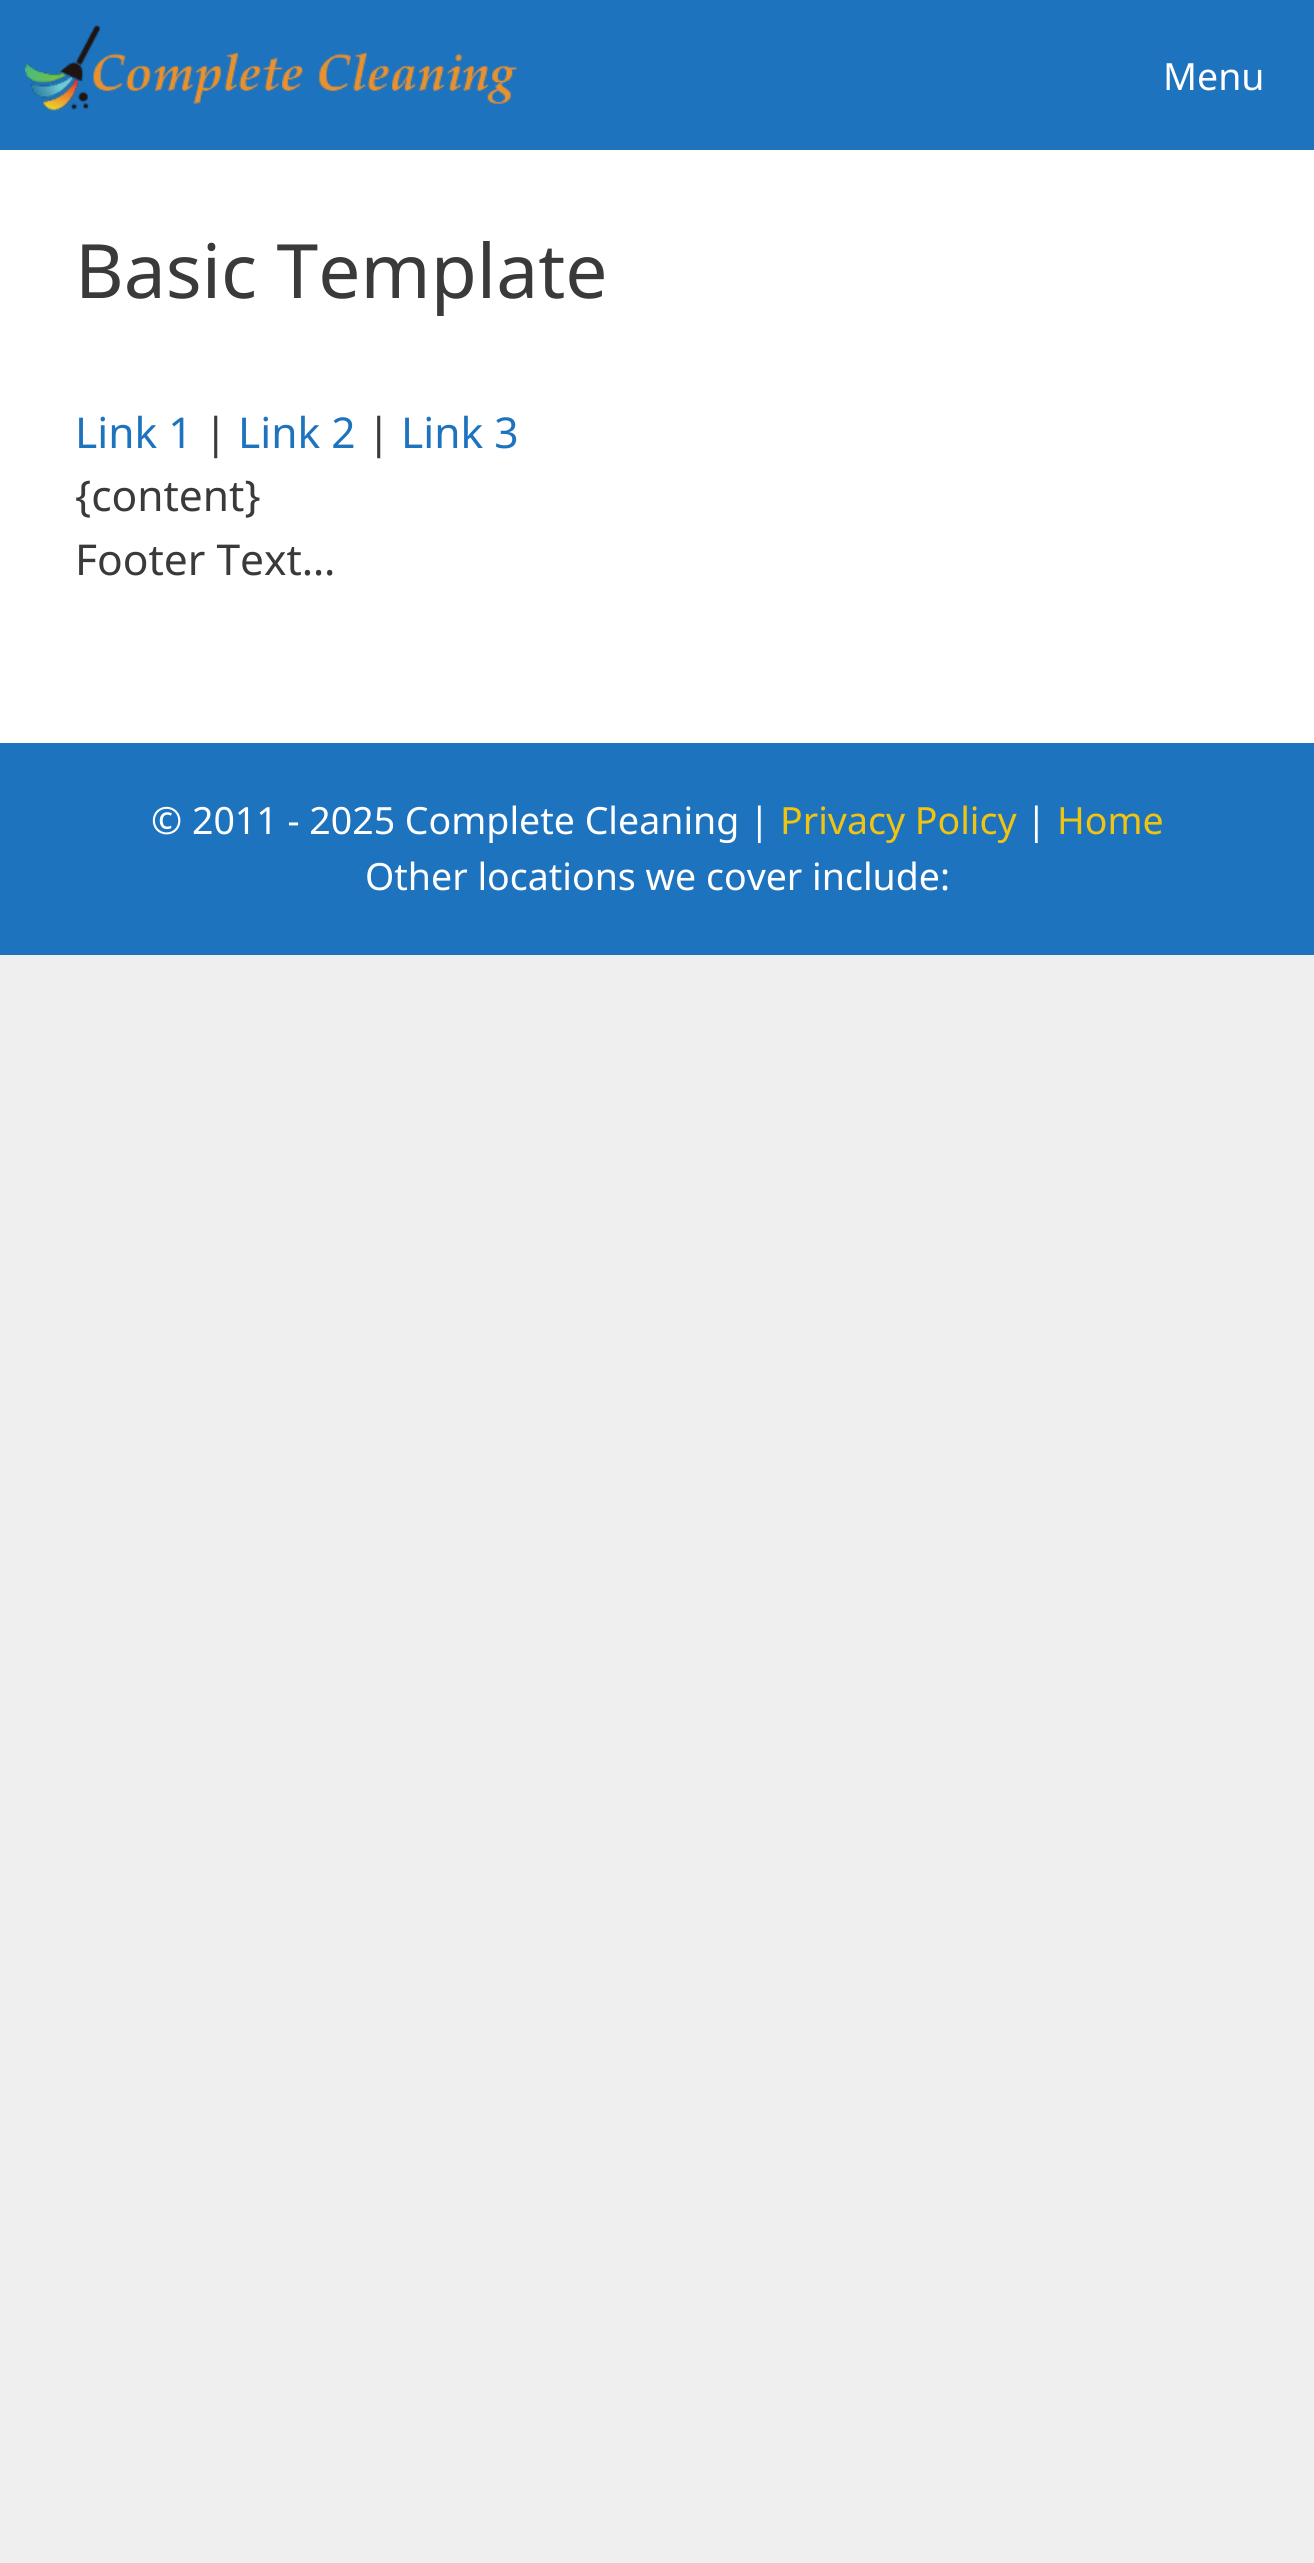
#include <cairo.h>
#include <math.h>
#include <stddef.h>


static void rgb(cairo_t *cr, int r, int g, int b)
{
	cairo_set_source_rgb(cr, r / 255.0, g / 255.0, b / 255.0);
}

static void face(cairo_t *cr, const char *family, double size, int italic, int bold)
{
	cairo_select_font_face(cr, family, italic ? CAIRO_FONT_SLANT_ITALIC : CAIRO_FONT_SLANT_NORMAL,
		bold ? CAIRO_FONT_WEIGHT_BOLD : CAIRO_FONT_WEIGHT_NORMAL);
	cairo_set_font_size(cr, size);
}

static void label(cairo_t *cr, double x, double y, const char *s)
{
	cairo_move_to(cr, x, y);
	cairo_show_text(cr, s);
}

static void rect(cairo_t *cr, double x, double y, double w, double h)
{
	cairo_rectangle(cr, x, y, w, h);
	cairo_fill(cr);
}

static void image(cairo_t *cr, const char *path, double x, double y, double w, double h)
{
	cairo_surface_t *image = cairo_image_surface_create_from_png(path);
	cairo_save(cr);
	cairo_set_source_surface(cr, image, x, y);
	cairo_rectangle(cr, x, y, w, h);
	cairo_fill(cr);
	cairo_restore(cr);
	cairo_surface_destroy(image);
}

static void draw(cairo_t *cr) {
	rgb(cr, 239, 239, 239);
	cairo_paint(cr);
	rgb(cr, 30, 115, 190);
	rect(cr, 0, 0, 1314, 150);
	image(cr, "image0.png", 25, 25, 492, 86);
	face(cr, "Noto Sans", 37.5, 0, 0);
	rgb(cr, 255, 255, 255);
	label(cr, 1163, 90, "Menu");
	rect(cr, 0, 150, 1314, 593);
	face(cr, "Noto Sans", 75, 0, 0);
	rgb(cr, 58, 58, 58);
	label(cr, 75, 298, "Basic Template");
	face(cr, "Noto Sans", 42.5, 0, 0);
	rgb(cr, 30, 115, 190);
	label(cr, 75, 448, "Link 1");
	rgb(cr, 58, 58, 58);
	label(cr, 204, 448, "|");
	rgb(cr, 30, 115, 190);
	label(cr, 238, 448, "Link 2");
	rgb(cr, 58, 58, 58);
	label(cr, 367, 448, "|");
	rgb(cr, 30, 115, 190);
	label(cr, 401, 448, "Link 3");
	rgb(cr, 58, 58, 58);
	label(cr, 75, 511, "{content}");
	label(cr, 75, 575, "Footer Text…");
	rgb(cr, 30, 115, 190);
	rect(cr, 0, 743, 1314, 212);
	face(cr, "Noto Sans", 37.5, 0, 0);
	rgb(cr, 255, 255, 255);
	label(cr, 151, 834, "© 2011 - 2025 Complete Cleaning |");
	rgb(cr, 241, 196, 15);
	label(cr, 780, 834, "Privacy Policy");
	rgb(cr, 255, 255, 255);
	label(cr, 1026, 834, "|");
	rgb(cr, 241, 196, 15);
	label(cr, 1057, 834, "Home");
	rgb(cr, 255, 255, 255);
	label(cr, 365, 890, "Other locations we cover include:");
}

int main(void) {
	cairo_surface_t *surface = cairo_image_surface_create(CAIRO_FORMAT_RGB24, 1314, 2563);
	cairo_t *cr = cairo_create(surface);
	cairo_font_options_t *options = cairo_font_options_create();
	cairo_font_options_set_hint_metrics(options, CAIRO_HINT_METRICS_OFF);
	cairo_font_options_set_hint_style(options, CAIRO_HINT_STYLE_NONE);
	cairo_set_font_options(cr, options);
	cairo_set_miter_limit(cr, 4);
	draw(cr);
	cairo_surface_write_to_png(surface, "render.png");
	cairo_font_options_destroy(options);
	cairo_destroy(cr);
	cairo_surface_destroy(surface);
	return 0;
}
